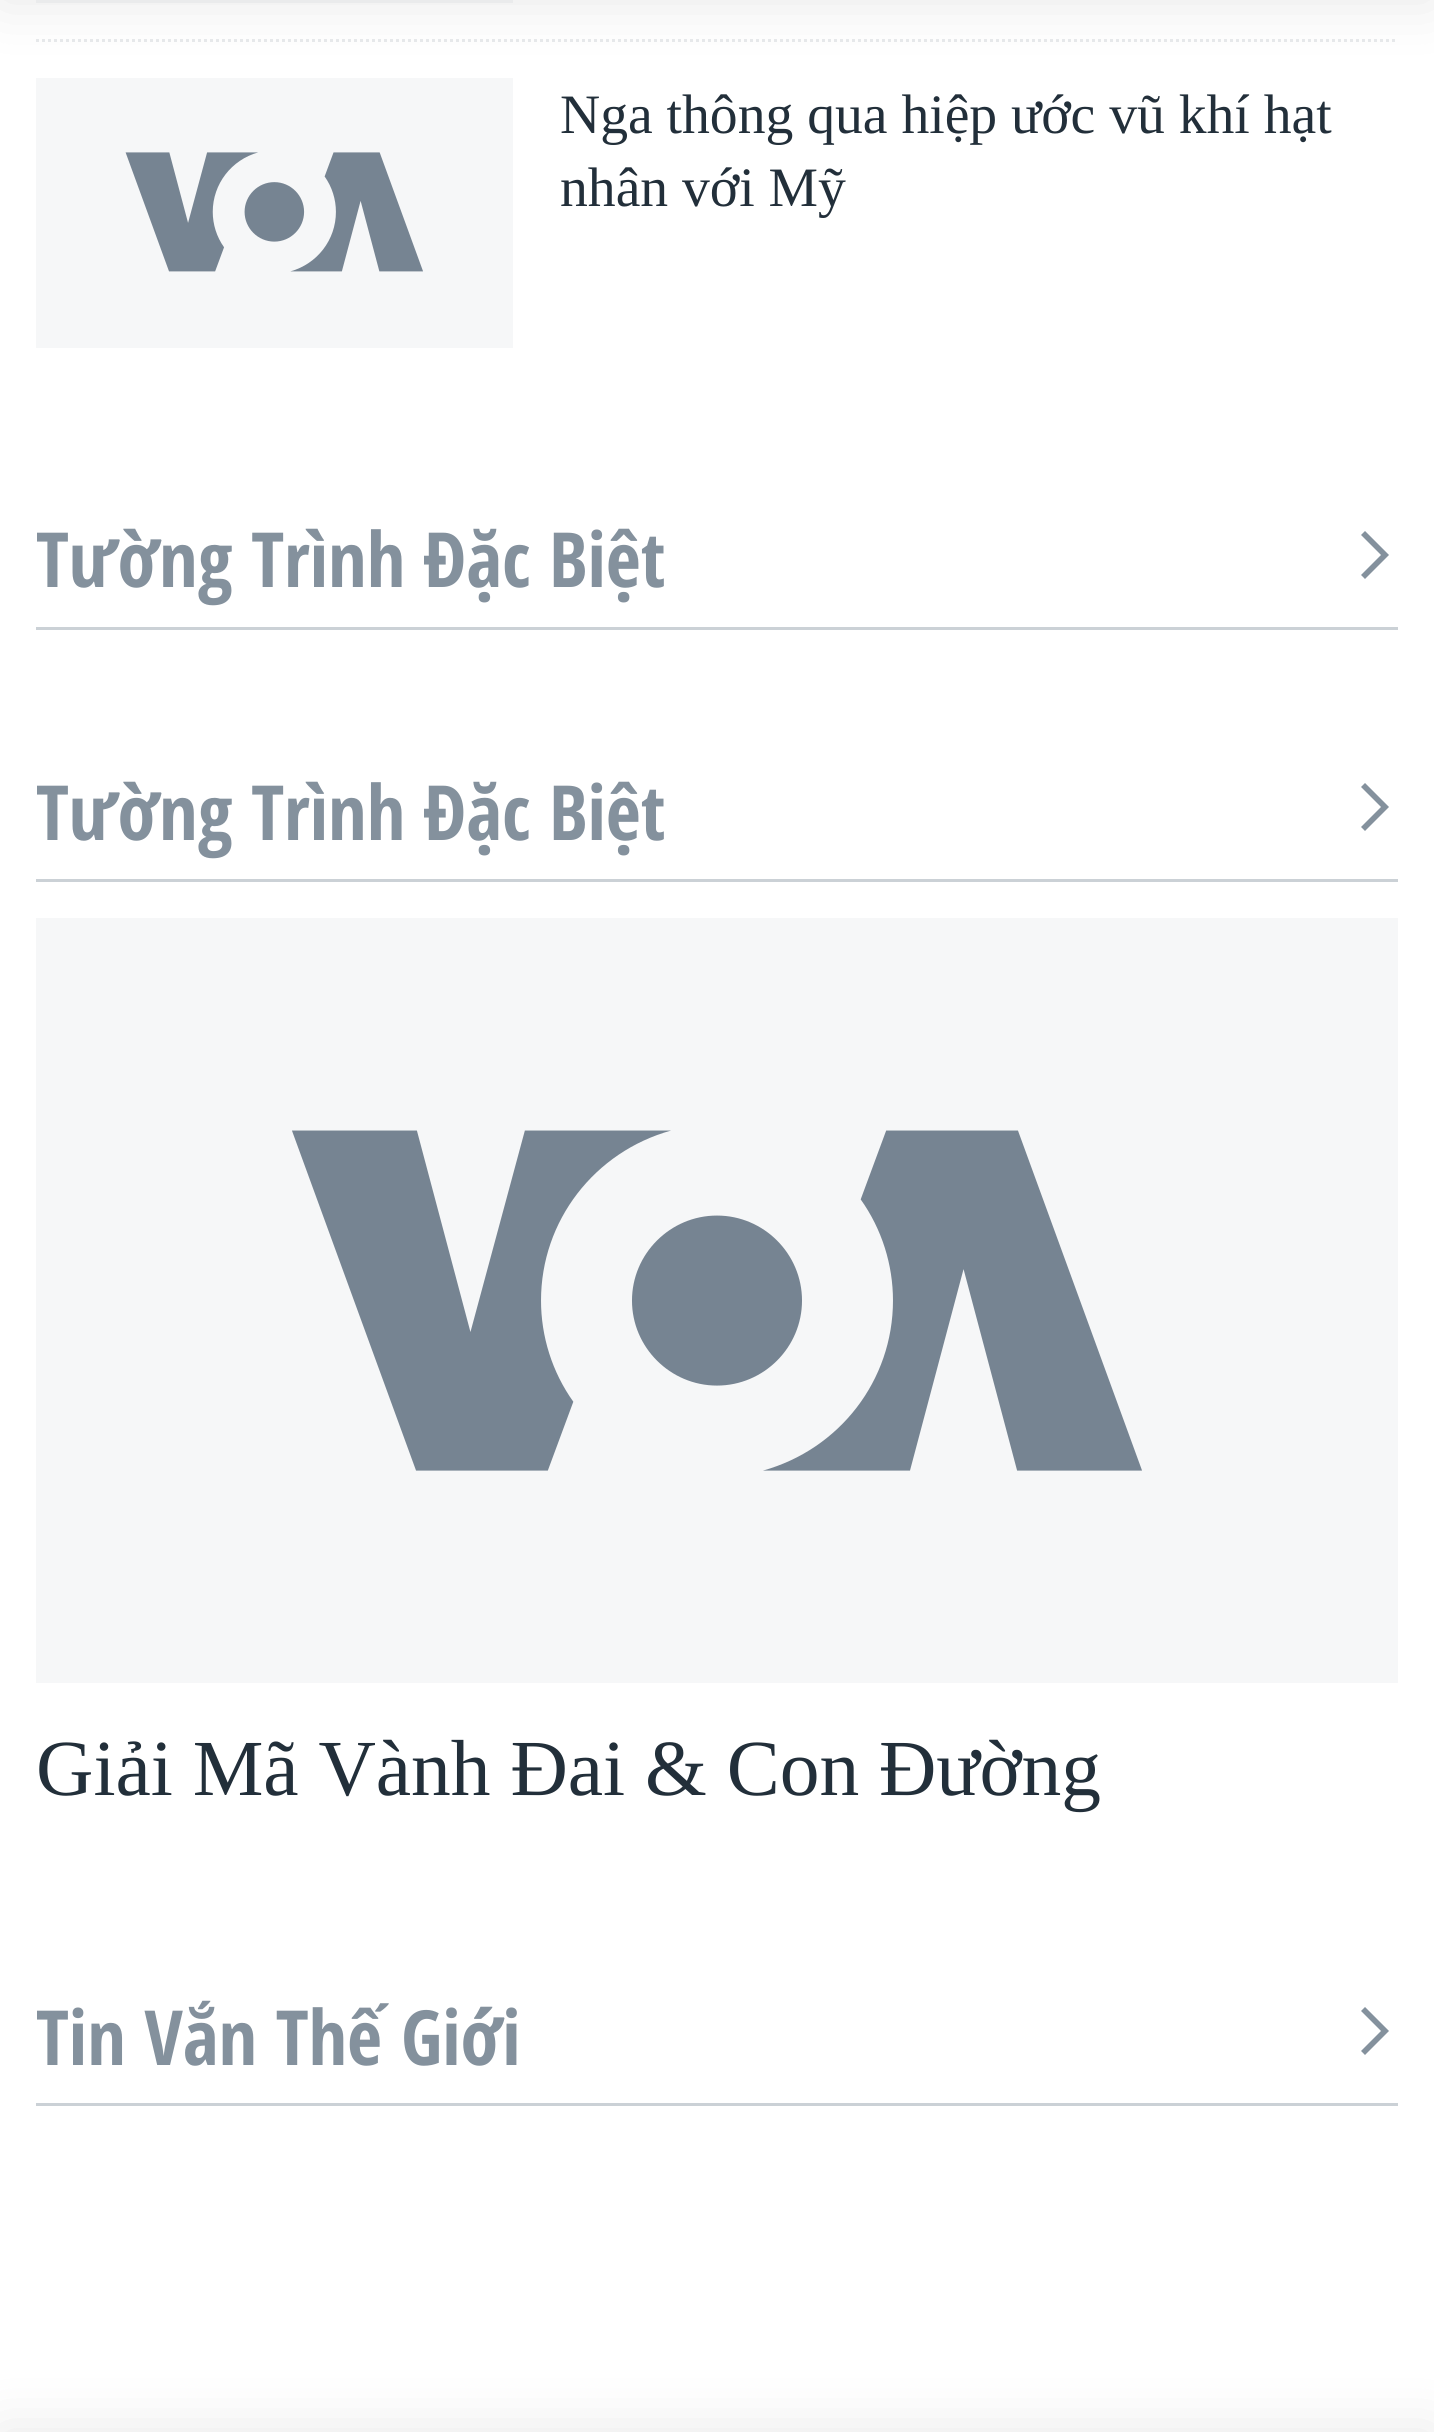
#include <cairo.h>
#include <math.h>
#include <stddef.h>


static void rgb(cairo_t *cr, int r, int g, int b)
{
	cairo_set_source_rgb(cr, r / 255.0, g / 255.0, b / 255.0);
}

static void face(cairo_t *cr, const char *family, double size, int italic, int bold)
{
	cairo_select_font_face(cr, family, italic ? CAIRO_FONT_SLANT_ITALIC : CAIRO_FONT_SLANT_NORMAL,
		bold ? CAIRO_FONT_WEIGHT_BOLD : CAIRO_FONT_WEIGHT_NORMAL);
	cairo_set_font_size(cr, size);
}

static void label(cairo_t *cr, double x, double y, const char *s)
{
	cairo_move_to(cr, x, y);
	cairo_show_text(cr, s);
}

static void rect(cairo_t *cr, double x, double y, double w, double h)
{
	cairo_rectangle(cr, x, y, w, h);
	cairo_fill(cr);
}

static void rrect(cairo_t *cr, double x, double y, double w, double h, double r)
{
	cairo_new_sub_path(cr);
	cairo_arc(cr, x + w - r, y + h - r, r, 0, M_PI / 2);
	cairo_arc(cr, x + r, y + h - r, r, M_PI / 2, M_PI);
	cairo_arc(cr, x + r, y + r, r, M_PI, 1.5 * M_PI);
	cairo_arc(cr, x + w - r, y + r, r, 1.5 * M_PI, 2 * M_PI);
	cairo_close_path(cr);
}

static void soft_shadow(cairo_t *cr, double x, double y, double w, double h, double r, double blur, double alpha)
{
	cairo_push_group_with_content(cr, CAIRO_CONTENT_ALPHA);
	cairo_set_operator(cr, CAIRO_OPERATOR_SOURCE);
	for (int i = 15; i >= -15 && fmin(w, h) + blur * i / 3 > 0; i -= 2) {
		double e = blur * i / 6;
		cairo_set_source_rgba(cr, 0, 0, 0, alpha * erfc((i - 1) / 8.5) / 2);
		rrect(cr, x - e, y - e, w + 2 * e, h + 2 * e, fmax(0, fmin(r + e + blur * .6, fmin(w, h) / 2 + e)));
		cairo_fill(cr);
	}
	cairo_pattern_t *soft = cairo_pop_group(cr);
	cairo_mask(cr, soft);
	cairo_pattern_destroy(soft);
}

static void image(cairo_t *cr, const char *path, double x, double y, double w, double h)
{
	cairo_surface_t *image = cairo_image_surface_create_from_png(path);
	cairo_save(cr);
	cairo_set_source_surface(cr, image, x, y);
	cairo_rectangle(cr, x, y, w, h);
	cairo_fill(cr);
	cairo_restore(cr);
	cairo_surface_destroy(image);
}

static void draw(cairo_t *cr) {
	rgb(cr, 255, 255, 255);
	cairo_paint(cr);
	rgb(cr, 246, 247, 248);
	rect(cr, 36, 0, 477, 3);
	cairo_new_path(cr);
	cairo_move_to(cr, 36, 40.5);
	cairo_line_to(cr, 1398, 40.5);
	rgb(cr, 232, 234, 236);
	cairo_set_line_width(cr, 3);
	cairo_set_dash(cr, (double[]){3, 3}, 2, 0);
	cairo_stroke(cr);
	rgb(cr, 246, 247, 248);
	rect(cr, 36, 78, 477, 270);
	rgb(cr, 0, 0, 0);
	soft_shadow(cr, 0, -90, 1434, 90, 0, 30, 0.1);
	soft_shadow(cr, 0, 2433, 1434, 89, 0, 30, 0.1);
	image(cr, "image0.png", 125, 152, 298, 120);
	face(cr, "Tinos", 52.5, 0, 0);
	rgb(cr, 34, 47, 58);
	label(cr, 560, 133, "Nga thông qua hiệp ước vũ khí hạt");
	label(cr, 560, 206, "nhân với Mỹ");
	rgb(cr, 203, 209, 214);
	rect(cr, 36, 627, 1362, 3);
	face(cr, "Open Sans Condensed", 85.5, 0, 1);
	rgb(cr, 132, 145, 157);
	label(cr, 36, 587, "Tường Trình Đặc Biệt");
	cairo_new_path(cr);
	cairo_move_to(cr, 1365, 579);
	cairo_line_to(cr, 1389, 555);
	cairo_line_to(cr, 1365, 531);
	cairo_line_to(cr, 1361, 535);
	cairo_line_to(cr, 1381, 555);
	cairo_line_to(cr, 1361, 575);
	cairo_close_path(cr);
	cairo_fill(cr);
	rgb(cr, 203, 209, 214);
	rect(cr, 36, 879, 1362, 3);
	rgb(cr, 132, 145, 157);
	label(cr, 36, 840, "Tường Trình Đặc Biệt");
	cairo_new_path(cr);
	cairo_move_to(cr, 1365, 831);
	cairo_line_to(cr, 1389, 807);
	cairo_line_to(cr, 1365, 783);
	cairo_line_to(cr, 1361, 787);
	cairo_line_to(cr, 1381, 807);
	cairo_line_to(cr, 1361, 827);
	cairo_close_path(cr);
	cairo_fill(cr);
	rgb(cr, 246, 247, 248);
	rect(cr, 36, 918, 1362, 765);
	image(cr, "image1.png", 292, 1130, 850, 341);
	face(cr, "Tinos", 75, 0, 0);
	rgb(cr, 34, 47, 58);
	label(cr, 36, 1795, "Giải Mã Vành Đai & Con Đường");
	rgb(cr, 203, 209, 214);
	rect(cr, 36, 2103, 1362, 3);
	face(cr, "Open Sans Condensed", 85.5, 0, 1);
	rgb(cr, 132, 145, 157);
	label(cr, 36, 2065, "Tin Vắn Thế Giới");
	cairo_new_path(cr);
	cairo_move_to(cr, 1365, 2055);
	cairo_line_to(cr, 1389, 2031);
	cairo_line_to(cr, 1365, 2007);
	cairo_line_to(cr, 1361, 2011);
	cairo_line_to(cr, 1381, 2031);
	cairo_line_to(cr, 1361, 2051);
	cairo_close_path(cr);
	cairo_fill(cr);
}

int main(void) {
	cairo_surface_t *surface = cairo_image_surface_create(CAIRO_FORMAT_RGB24, 1434, 2432);
	cairo_t *cr = cairo_create(surface);
	cairo_font_options_t *options = cairo_font_options_create();
	cairo_font_options_set_hint_metrics(options, CAIRO_HINT_METRICS_OFF);
	cairo_font_options_set_hint_style(options, CAIRO_HINT_STYLE_NONE);
	cairo_set_font_options(cr, options);
	cairo_set_miter_limit(cr, 4);
	draw(cr);
	cairo_surface_write_to_png(surface, "render.png");
	cairo_font_options_destroy(options);
	cairo_destroy(cr);
	cairo_surface_destroy(surface);
	return 0;
}
